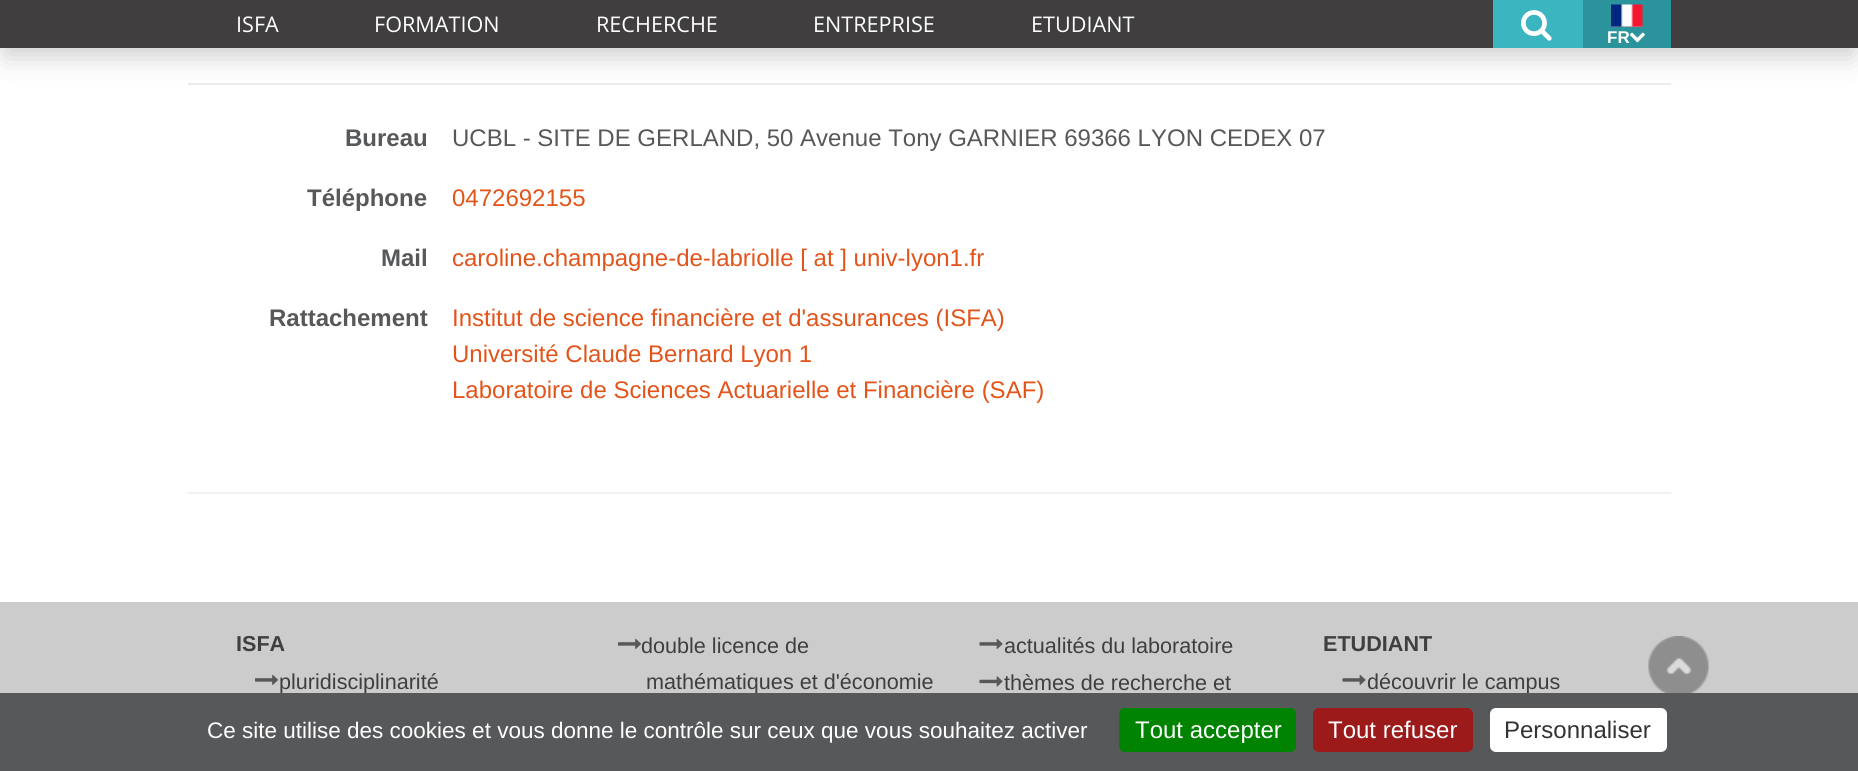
#include <cairo.h>
#include <math.h>
#include <stddef.h>


static void rgb(cairo_t *cr, int r, int g, int b)
{
	cairo_set_source_rgb(cr, r / 255.0, g / 255.0, b / 255.0);
}

static void face(cairo_t *cr, const char *family, double size, int italic, int bold)
{
	cairo_select_font_face(cr, family, italic ? CAIRO_FONT_SLANT_ITALIC : CAIRO_FONT_SLANT_NORMAL,
		bold ? CAIRO_FONT_WEIGHT_BOLD : CAIRO_FONT_WEIGHT_NORMAL);
	cairo_set_font_size(cr, size);
}

static void label(cairo_t *cr, double x, double y, const char *s)
{
	cairo_move_to(cr, x, y);
	cairo_show_text(cr, s);
}

static void rect(cairo_t *cr, double x, double y, double w, double h)
{
	cairo_rectangle(cr, x, y, w, h);
	cairo_fill(cr);
}

static void rrect(cairo_t *cr, double x, double y, double w, double h, double r)
{
	cairo_new_sub_path(cr);
	cairo_arc(cr, x + w - r, y + h - r, r, 0, M_PI / 2);
	cairo_arc(cr, x + r, y + h - r, r, M_PI / 2, M_PI);
	cairo_arc(cr, x + r, y + r, r, M_PI, 1.5 * M_PI);
	cairo_arc(cr, x + w - r, y + r, r, 1.5 * M_PI, 2 * M_PI);
	cairo_close_path(cr);
}

static void soft_shadow(cairo_t *cr, double x, double y, double w, double h, double r, double blur, double alpha)
{
	cairo_push_group_with_content(cr, CAIRO_CONTENT_ALPHA);
	cairo_set_operator(cr, CAIRO_OPERATOR_SOURCE);
	for (int i = 15; i >= -15 && fmin(w, h) + blur * i / 3 > 0; i -= 2) {
		double e = blur * i / 6;
		cairo_set_source_rgba(cr, 0, 0, 0, alpha * erfc((i - 1) / 8.5) / 2);
		rrect(cr, x - e, y - e, w + 2 * e, h + 2 * e, fmax(0, fmin(r + e + blur * .6, fmin(w, h) / 2 + e)));
		cairo_fill(cr);
	}
	cairo_pattern_t *soft = cairo_pop_group(cr);
	cairo_mask(cr, soft);
	cairo_pattern_destroy(soft);
}

static void image(cairo_t *cr, const char *path, double x, double y, double w, double h)
{
	cairo_surface_t *image = cairo_image_surface_create_from_png(path);
	cairo_save(cr);
	cairo_set_source_surface(cr, image, x, y);
	cairo_rectangle(cr, x, y, w, h);
	cairo_fill(cr);
	cairo_restore(cr);
	cairo_surface_destroy(image);
}

static void draw(cairo_t *cr) {
	rgb(cr, 255, 255, 255);
	cairo_paint(cr);
	rgb(cr, 238, 238, 238);
	rect(cr, 188, 83, 1483, 2);
	rgb(cr, 199, 199, 199);
	soft_shadow(cr, 6, 18, 1847, 36, 0, 14, 1);
	rgb(cr, 64, 62, 63);
	rect(cr, 0, 0, 1858, 48);
	face(cr, "Open Sans", 21.6, 0, 0);
	rgb(cr, 255, 255, 255);
	label(cr, 236, 32, "ISFA");
	label(cr, 374, 32, "FORMATION");
	label(cr, 596, 32, "RECHERCHE");
	label(cr, 813, 32, "ENTREPRISE");
	label(cr, 1031, 32, "ETUDIANT");
	rgb(cr, 59, 181, 192);
	rect(cr, 1493, 0, 90, 48);
	image(cr, "image0.png", 1521, 10, 31, 31);
	rgb(cr, 43, 147, 156);
	rect(cr, 1583, 0, 88, 48);
	image(cr, "image1.png", 1611, 4, 32, 24);
	face(cr, "Liberation Sans", 17, 0, 1);
	rgb(cr, 255, 255, 255);
	label(cr, 1607, 43, "FR");
	image(cr, "image2.png", 1629, 32, 16, 11);
	rgb(cr, 242, 242, 242);
	rect(cr, 188, 492, 1483, 2);
	face(cr, "Liberation Sans", 24, 0, 1);
	rgb(cr, 87, 88, 90);
	label(cr, 345, 146, "Bureau");
	face(cr, "Liberation Sans", 24, 0, 0);
	label(cr, 452, 146, "UCBL - SITE DE GERLAND, 50 Avenue Tony GARNIER 69366 LYON CEDEX 07");
	face(cr, "Liberation Sans", 24, 0, 1);
	label(cr, 307, 206, "Téléphone");
	face(cr, "Liberation Sans", 24, 0, 0);
	rgb(cr, 227, 84, 26);
	label(cr, 452, 206, "0472692155");
	face(cr, "Liberation Sans", 24, 0, 1);
	rgb(cr, 87, 88, 90);
	label(cr, 381, 266, "Mail");
	face(cr, "Liberation Sans", 24, 0, 0);
	rgb(cr, 227, 84, 26);
	label(cr, 452, 266, "caroline.champagne-de-labriolle [ at ] univ-lyon1.fr");
	face(cr, "Liberation Sans", 24, 0, 1);
	rgb(cr, 87, 88, 90);
	label(cr, 269, 326, "Rattachement");
	face(cr, "Liberation Sans", 24, 0, 0);
	rgb(cr, 227, 84, 26);
	label(cr, 452, 326, "Institut de science financière et d'assurances (ISFA)");
	label(cr, 452, 362, "Université Claude Bernard Lyon 1");
	label(cr, 452, 398, "Laboratoire de Sciences Actuarielle et Financière (SAF)");
	rgb(cr, 204, 204, 204);
	rect(cr, 0, 602, 1858, 91);
	face(cr, "Liberation Sans", 21.6, 0, 1);
	rgb(cr, 64, 62, 63);
	label(cr, 236, 651, "ISFA");
	image(cr, "image3.png", 255, 674, 24, 11);
	face(cr, "Liberation Sans", 21.6, 0, 0);
	label(cr, 279, 689, "pluridisciplinarité");
	image(cr, "image3.png", 618, 638, 24, 11);
	label(cr, 641, 653, "double licence de");
	label(cr, 646, 689, "mathématiques et d'économie");
	image(cr, "image4.png", 979, 638, 24, 11);
	label(cr, 1004, 653, "actualités du laboratoire");
	image(cr, "image5.png", 979, 676, 24, 11);
	label(cr, 1004, 690, "thèmes de recherche et");
	face(cr, "Liberation Sans", 21.6, 0, 1);
	label(cr, 1323, 651, "ETUDIANT");
	image(cr, "image4.png", 1342, 674, 24, 11);
	face(cr, "Liberation Sans", 21.6, 0, 0);
	label(cr, 1367, 689, "découvrir le campus");
	image(cr, "image6.png", 1648, 636, 61, 57);
	rgb(cr, 87, 88, 90);
	rect(cr, 0, 693, 1858, 78);
	face(cr, "Liberation Sans", 22.5, 0, 0);
	rgb(cr, 255, 255, 255);
	label(cr, 207, 738, "Ce site utilise des cookies et vous donne le contrôle sur ceux que vous souhaitez activer");
	rgb(cr, 0, 131, 0);
	rrect(cr, 1119, 708, 177, 44, 6);
	cairo_fill(cr);
	face(cr, "Liberation Sans", 24, 0, 0);
	rgb(cr, 255, 255, 255);
	label(cr, 1135, 738, "Tout accepter");
	rgb(cr, 156, 26, 26);
	rrect(cr, 1313, 708, 160, 44, 6);
	cairo_fill(cr);
	rgb(cr, 255, 255, 255);
	label(cr, 1328, 738, "Tout refuser");
	rrect(cr, 1490, 708, 177, 44, 6);
	cairo_fill(cr);
	rgb(cr, 51, 51, 51);
	label(cr, 1504, 738, "Personnaliser");
}

int main(void) {
	cairo_surface_t *surface = cairo_image_surface_create(CAIRO_FORMAT_RGB24, 1858, 771);
	cairo_t *cr = cairo_create(surface);
	cairo_font_options_t *options = cairo_font_options_create();
	cairo_font_options_set_hint_metrics(options, CAIRO_HINT_METRICS_OFF);
	cairo_font_options_set_hint_style(options, CAIRO_HINT_STYLE_NONE);
	cairo_set_font_options(cr, options);
	cairo_set_miter_limit(cr, 4);
	draw(cr);
	cairo_surface_write_to_png(surface, "render.png");
	cairo_font_options_destroy(options);
	cairo_destroy(cr);
	cairo_surface_destroy(surface);
	return 0;
}
